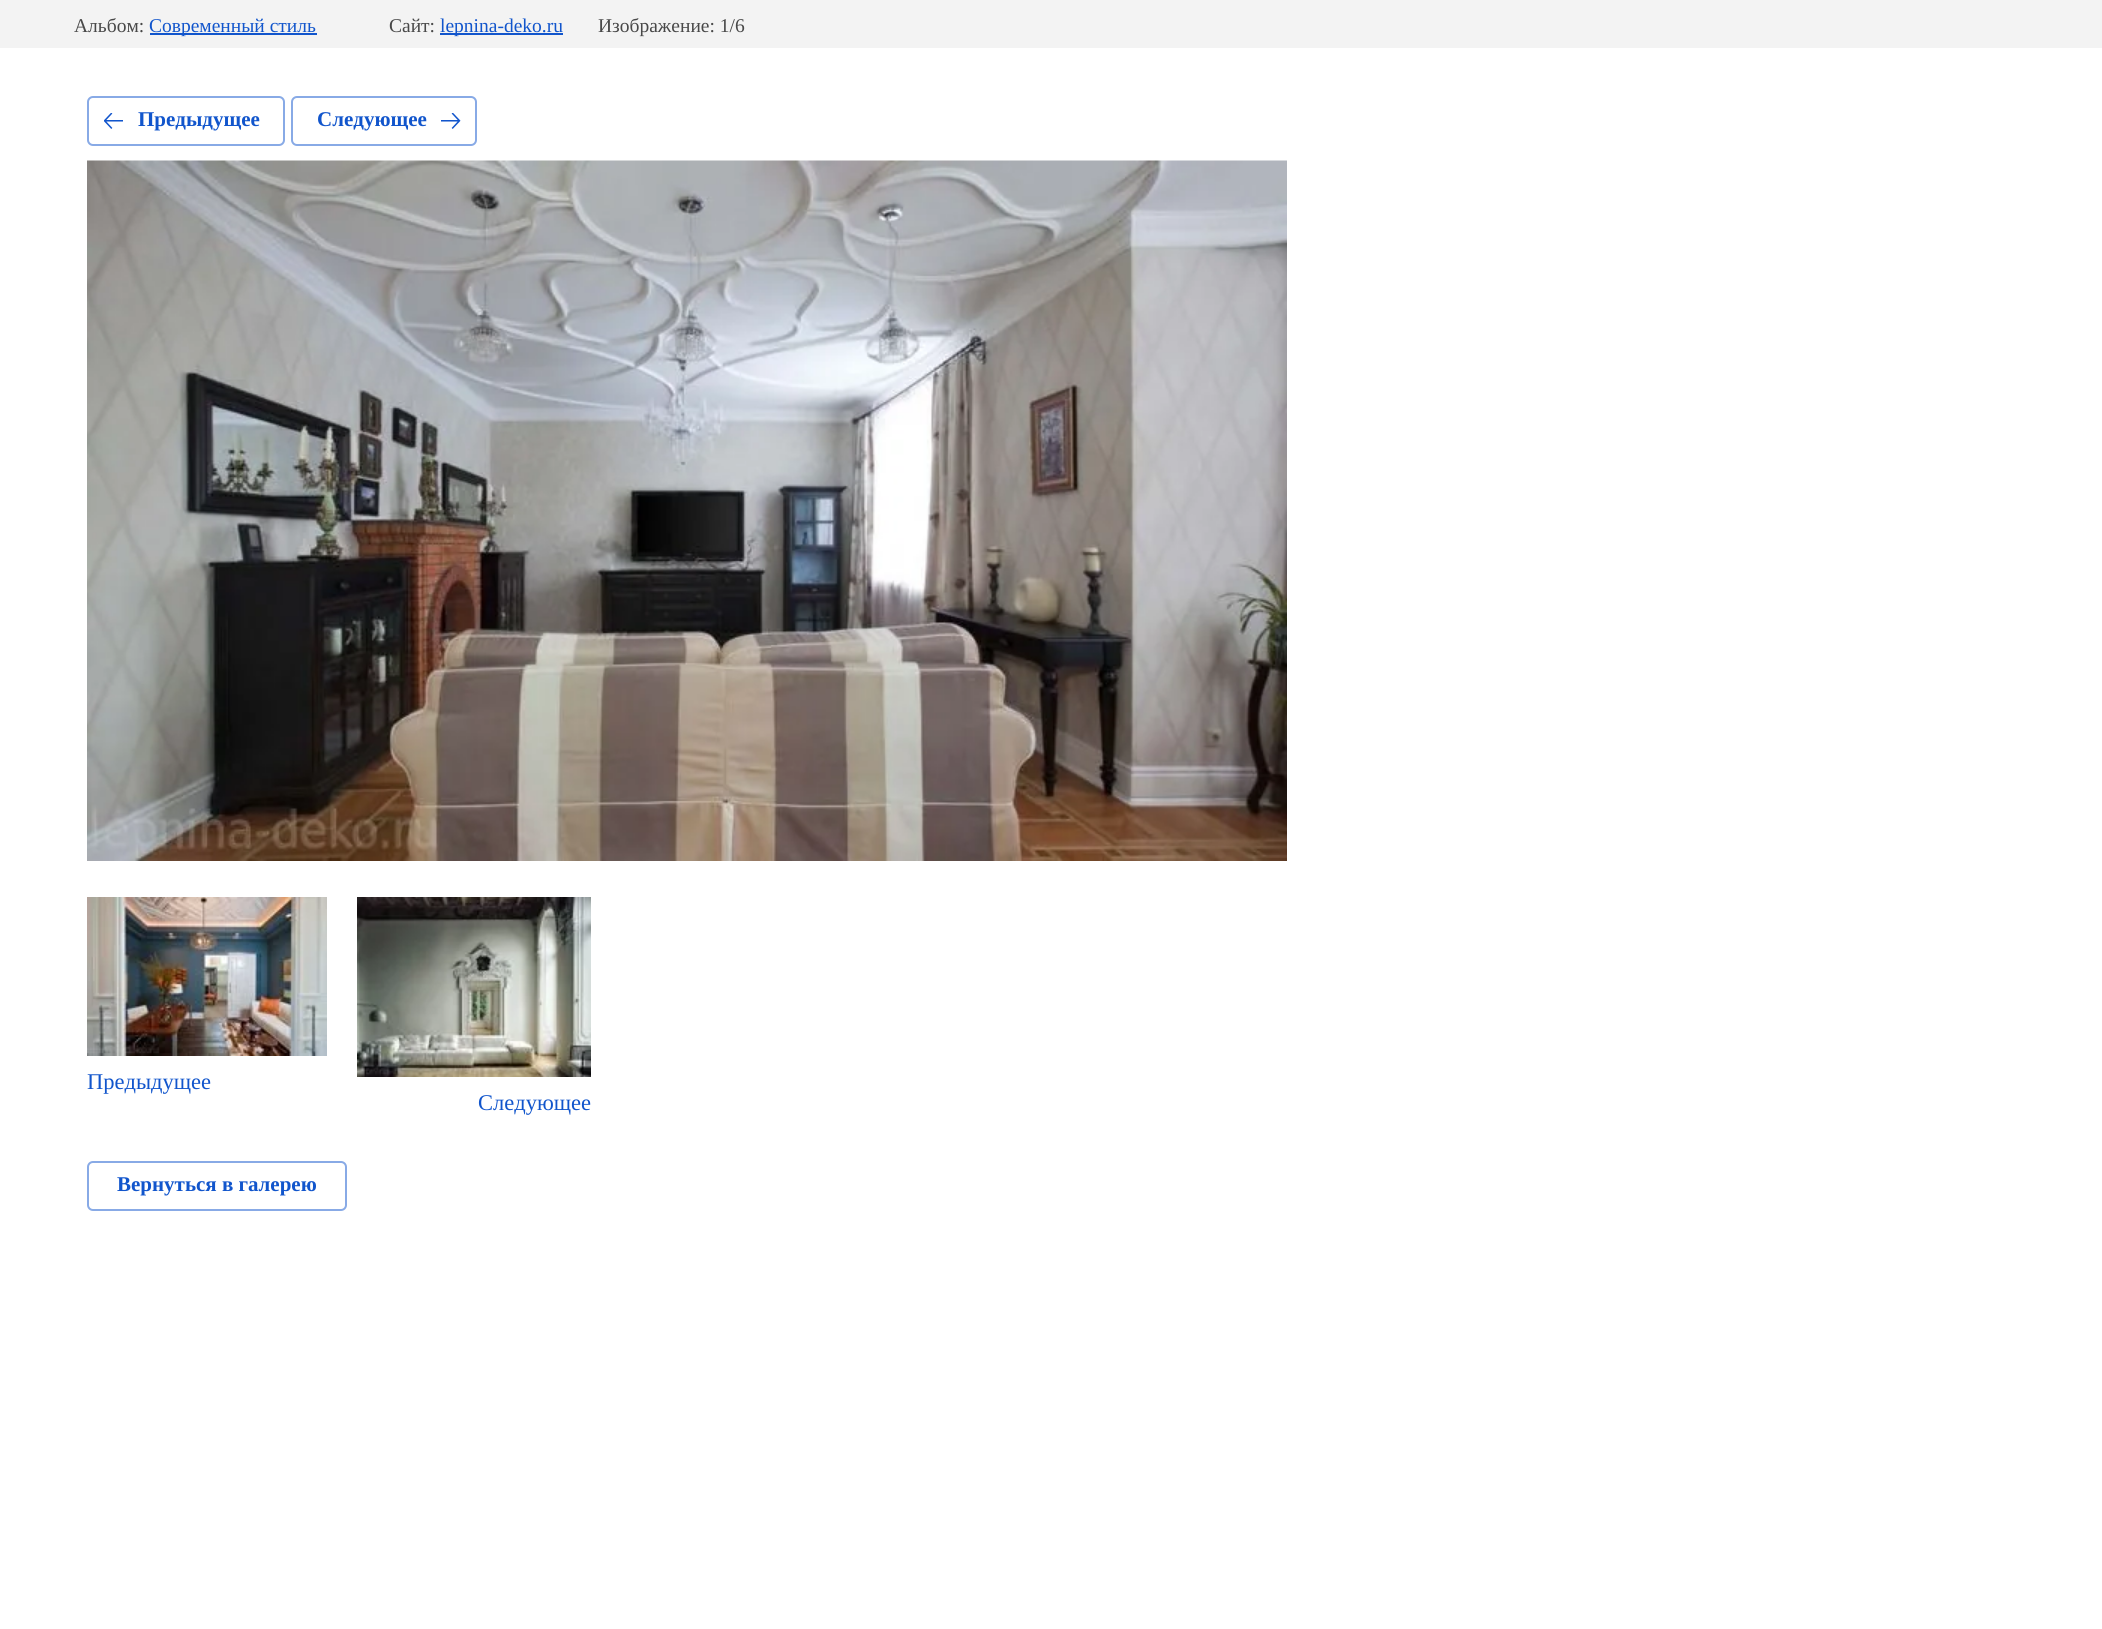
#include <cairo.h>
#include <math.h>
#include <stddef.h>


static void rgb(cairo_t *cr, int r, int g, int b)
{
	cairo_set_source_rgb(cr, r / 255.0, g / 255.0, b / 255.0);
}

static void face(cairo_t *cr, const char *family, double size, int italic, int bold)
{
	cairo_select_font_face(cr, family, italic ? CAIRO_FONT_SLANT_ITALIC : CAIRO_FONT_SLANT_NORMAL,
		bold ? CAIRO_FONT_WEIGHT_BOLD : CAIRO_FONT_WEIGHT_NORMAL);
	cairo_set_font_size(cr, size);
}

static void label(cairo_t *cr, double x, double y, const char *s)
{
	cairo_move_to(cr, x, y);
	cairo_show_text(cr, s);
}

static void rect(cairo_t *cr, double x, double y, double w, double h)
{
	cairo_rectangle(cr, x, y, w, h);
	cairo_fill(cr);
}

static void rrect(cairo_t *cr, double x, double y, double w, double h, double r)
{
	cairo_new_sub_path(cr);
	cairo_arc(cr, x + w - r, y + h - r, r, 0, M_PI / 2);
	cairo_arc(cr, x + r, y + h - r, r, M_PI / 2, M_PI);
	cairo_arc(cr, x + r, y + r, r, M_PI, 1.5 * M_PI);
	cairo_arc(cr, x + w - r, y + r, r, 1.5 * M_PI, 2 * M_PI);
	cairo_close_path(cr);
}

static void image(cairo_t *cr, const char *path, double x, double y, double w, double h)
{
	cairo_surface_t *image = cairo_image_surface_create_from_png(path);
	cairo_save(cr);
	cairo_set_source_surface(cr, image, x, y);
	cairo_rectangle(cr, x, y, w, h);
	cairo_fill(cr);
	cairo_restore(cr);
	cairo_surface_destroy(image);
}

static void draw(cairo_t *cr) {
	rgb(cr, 255, 255, 255);
	cairo_paint(cr);
	rgb(cr, 243, 243, 243);
	rect(cr, 0, 0, 2102, 48);
	face(cr, "Liberation Serif", 19.5, 0, 0);
	rgb(cr, 72, 72, 72);
	label(cr, 74, 32, "Альбом:");
	rgb(cr, 17, 85, 204);
	rect(cr, 150, 33, 167, 2);
	label(cr, 149, 32, "Современный стиль");
	rgb(cr, 72, 72, 72);
	label(cr, 389, 32, "Сайт:");
	rgb(cr, 17, 85, 204);
	rect(cr, 440, 33, 123, 2);
	label(cr, 440, 32, "lepnina-deko.ru");
	rgb(cr, 72, 72, 72);
	label(cr, 598, 32, "Изображение: 1/6");
	rrect(cr, 88, 97, 196, 48, 5);
	rgb(cr, 136, 170, 230);
	cairo_stroke(cr);
	image(cr, "image0.png", 104, 113, 19, 16);
	face(cr, "Liberation Serif", 21, 0, 1);
	rgb(cr, 17, 85, 204);
	label(cr, 138, 126, "Предыдущее");
	rrect(cr, 292, 97, 184, 48, 5);
	rgb(cr, 136, 170, 230);
	cairo_stroke(cr);
	rgb(cr, 17, 85, 204);
	label(cr, 317, 126, "Следующее");
	image(cr, "image1.png", 441, 113, 20, 16);
	image(cr, "image2.png", 87, 160, 1200, 701);
	image(cr, "image3.png", 87, 897, 240, 159);
	face(cr, "Liberation Serif", 22.5, 0, 0);
	label(cr, 87, 1089, "Предыдущее");
	image(cr, "image4.png", 357, 897, 234, 180);
	label(cr, 478, 1110, "Следующее");
	rrect(cr, 88, 1162, 258, 48, 5);
	rgb(cr, 136, 170, 230);
	cairo_stroke(cr);
	face(cr, "Liberation Serif", 21, 0, 1);
	rgb(cr, 17, 85, 204);
	label(cr, 117, 1191, "Вернуться в галерею");
}

int main(void) {
	cairo_surface_t *surface = cairo_image_surface_create(CAIRO_FORMAT_RGB24, 2102, 1629);
	cairo_t *cr = cairo_create(surface);
	cairo_font_options_t *options = cairo_font_options_create();
	cairo_font_options_set_hint_metrics(options, CAIRO_HINT_METRICS_OFF);
	cairo_font_options_set_hint_style(options, CAIRO_HINT_STYLE_NONE);
	cairo_set_font_options(cr, options);
	cairo_set_miter_limit(cr, 4);
	draw(cr);
	cairo_surface_write_to_png(surface, "render.png");
	cairo_font_options_destroy(options);
	cairo_destroy(cr);
	cairo_surface_destroy(surface);
	return 0;
}
